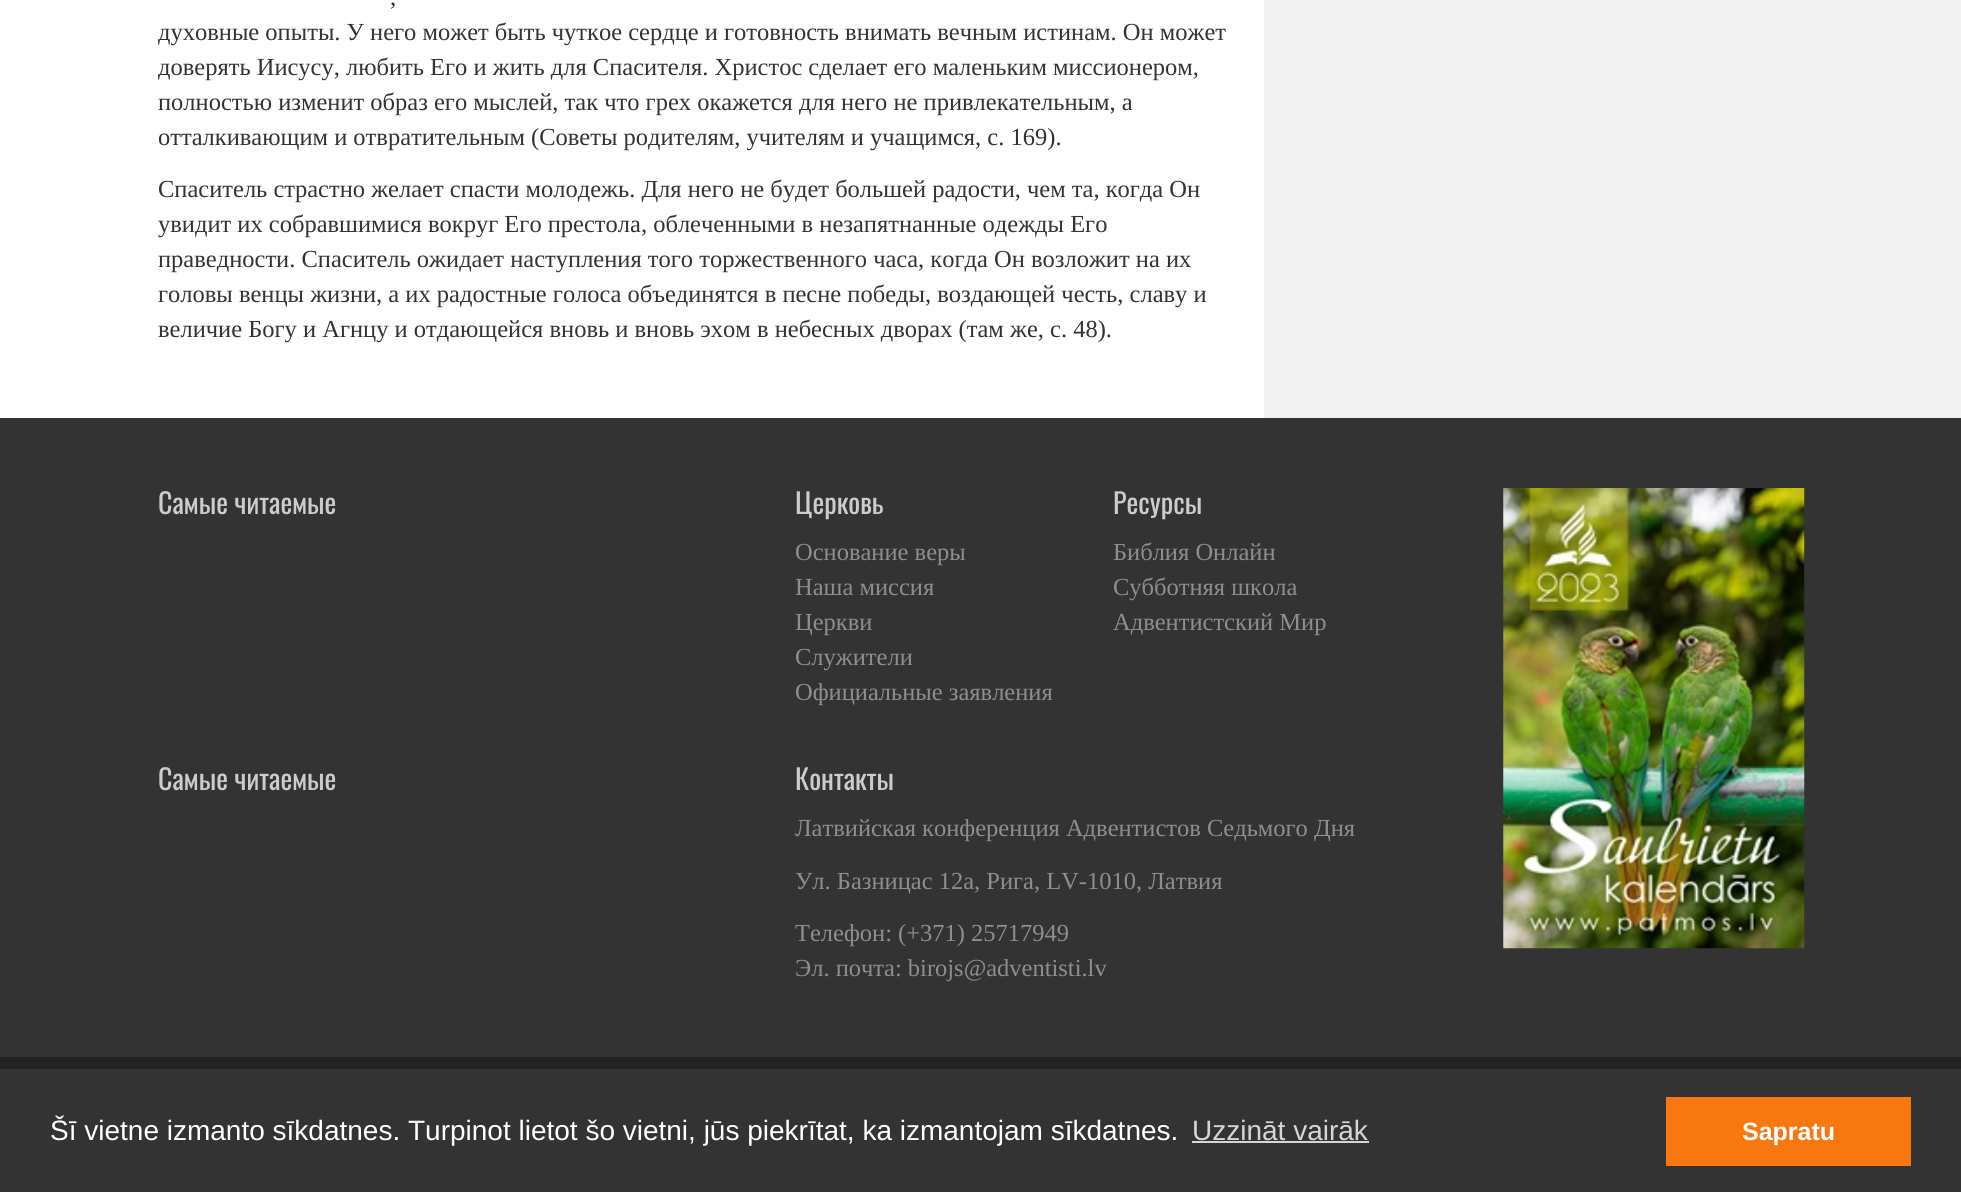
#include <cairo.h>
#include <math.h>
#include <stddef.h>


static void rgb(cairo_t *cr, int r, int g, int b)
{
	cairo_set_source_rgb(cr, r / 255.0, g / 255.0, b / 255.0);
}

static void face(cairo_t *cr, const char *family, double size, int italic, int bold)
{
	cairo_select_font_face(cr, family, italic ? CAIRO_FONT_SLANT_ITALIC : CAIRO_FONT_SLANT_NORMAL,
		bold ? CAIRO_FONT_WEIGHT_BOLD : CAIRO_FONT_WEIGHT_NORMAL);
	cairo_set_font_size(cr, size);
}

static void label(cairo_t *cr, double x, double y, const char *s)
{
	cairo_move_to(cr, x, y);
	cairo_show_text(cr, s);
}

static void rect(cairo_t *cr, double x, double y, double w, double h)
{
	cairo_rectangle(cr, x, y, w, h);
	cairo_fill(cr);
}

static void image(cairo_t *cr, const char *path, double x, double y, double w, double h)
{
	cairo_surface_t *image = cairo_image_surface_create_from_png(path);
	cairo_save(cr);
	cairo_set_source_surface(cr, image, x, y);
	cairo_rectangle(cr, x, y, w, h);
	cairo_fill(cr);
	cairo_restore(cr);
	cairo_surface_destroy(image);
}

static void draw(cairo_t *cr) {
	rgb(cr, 255, 255, 255);
	cairo_paint(cr);
	face(cr, "Liberation Serif", 24.5, 0, 0);
	rgb(cr, 51, 51, 51);
	label(cr, 390, 5, ",");
	label(cr, 158, 40, "духовные опыты. У него может быть чуткое сердце и готовность внимать вечным истинам. Он может");
	label(cr, 158, 75, "доверять Иисусу, любить Его и жить для Спасителя. Христос сделает его маленьким миссионером,");
	label(cr, 158, 110, "полностью изменит образ его мыслей, так что грех окажется для него не привлекательным, а");
	label(cr, 158, 145, "отталкивающим и отвратительным (Советы родителям, учителям и учащимся, с. 169).");
	label(cr, 158, 197, "Спаситель страстно желает спасти молодежь. Для него не будет большей радости, чем та, когда Он");
	label(cr, 158, 232, "увидит их собравшимися вокруг Его престола, облеченными в незапятнанные одежды Его");
	label(cr, 158, 267, "праведности. Спаситель ожидает наступления того торжественного часа, когда Он возложит на их");
	label(cr, 158, 302, "головы венцы жизни, а их радостные голоса объединятся в песне победы, воздающей честь, славу и");
	label(cr, 158, 337, "величие Богу и Агнцу и отдающейся вновь и вновь эхом в небесных дворах (там же, с. 48).");
	rgb(cr, 242, 242, 242);
	rect(cr, 1264, 0, 697, 418);
	rgb(cr, 51, 51, 51);
	rect(cr, 0, 418, 1961, 639);
	face(cr, "Oswald", 28, 0, 0);
	rgb(cr, 204, 204, 204);
	label(cr, 158, 514, "Самые читаемые");
	label(cr, 795, 514, "Церковь");
	face(cr, "Liberation Serif", 24.5, 0, 0);
	rgb(cr, 142, 142, 142);
	label(cr, 795, 560, "Основание веры");
	label(cr, 795, 595, "Наша миссия");
	label(cr, 795, 630, "Церкви");
	label(cr, 795, 665, "Служители");
	label(cr, 795, 700, "Официальные заявления");
	face(cr, "Oswald", 28, 0, 0);
	rgb(cr, 204, 204, 204);
	label(cr, 1113, 514, "Ресурсы");
	face(cr, "Liberation Serif", 24.5, 0, 0);
	rgb(cr, 142, 142, 142);
	label(cr, 1113, 560, "Библия Онлайн");
	label(cr, 1113, 595, "Субботняя школа");
	label(cr, 1113, 630, "Адвентистский Мир");
	face(cr, "Oswald", 28, 0, 0);
	rgb(cr, 204, 204, 204);
	label(cr, 158, 790, "Самые читаемые");
	label(cr, 795, 790, "Контакты");
	face(cr, "Liberation Serif", 24.5, 0, 0);
	rgb(cr, 142, 142, 142);
	label(cr, 795, 836, "Латвийская конференция Адвентистов Седьмого Дня");
	label(cr, 795, 889, "Ул. Базницас 12а, Рига, LV-1010, Латвия");
	label(cr, 795, 941, "Телефон: (+371) 25717949");
	label(cr, 795, 976, "Эл. почта: birojs@adventisti.lv");
	image(cr, "image0.png", 1503, 488, 302, 461);
	rgb(cr, 35, 35, 35);
	rect(cr, 0, 1057, 1961, 12);
	rgb(cr, 51, 51, 51);
	rect(cr, 0, 1069, 1961, 123);
	face(cr, "Liberation Sans", 28, 0, 0);
	rgb(cr, 255, 255, 255);
	label(cr, 50, 1140, "Šī vietne izmanto sīkdatnes. Turpinot lietot šo vietni, jūs piekrītat, ka izmantojam sīkdatnes.");
	rgb(cr, 214, 214, 214);
	label(cr, 1192, 1140, "Uzzināt vairāk");
	rect(cr, 1192, 1141, 177, 2);
	rgb(cr, 246, 120, 15);
	rect(cr, 1666, 1097, 245, 69);
	face(cr, "Liberation Sans", 25, 0, 1);
	rgb(cr, 255, 255, 255);
	label(cr, 1742, 1140, "Sapratu");
}

int main(void) {
	cairo_surface_t *surface = cairo_image_surface_create(CAIRO_FORMAT_RGB24, 1961, 1192);
	cairo_t *cr = cairo_create(surface);
	cairo_font_options_t *options = cairo_font_options_create();
	cairo_font_options_set_hint_metrics(options, CAIRO_HINT_METRICS_OFF);
	cairo_font_options_set_hint_style(options, CAIRO_HINT_STYLE_NONE);
	cairo_set_font_options(cr, options);
	cairo_set_miter_limit(cr, 4);
	draw(cr);
	cairo_surface_write_to_png(surface, "render.png");
	cairo_font_options_destroy(options);
	cairo_destroy(cr);
	cairo_surface_destroy(surface);
	return 0;
}
